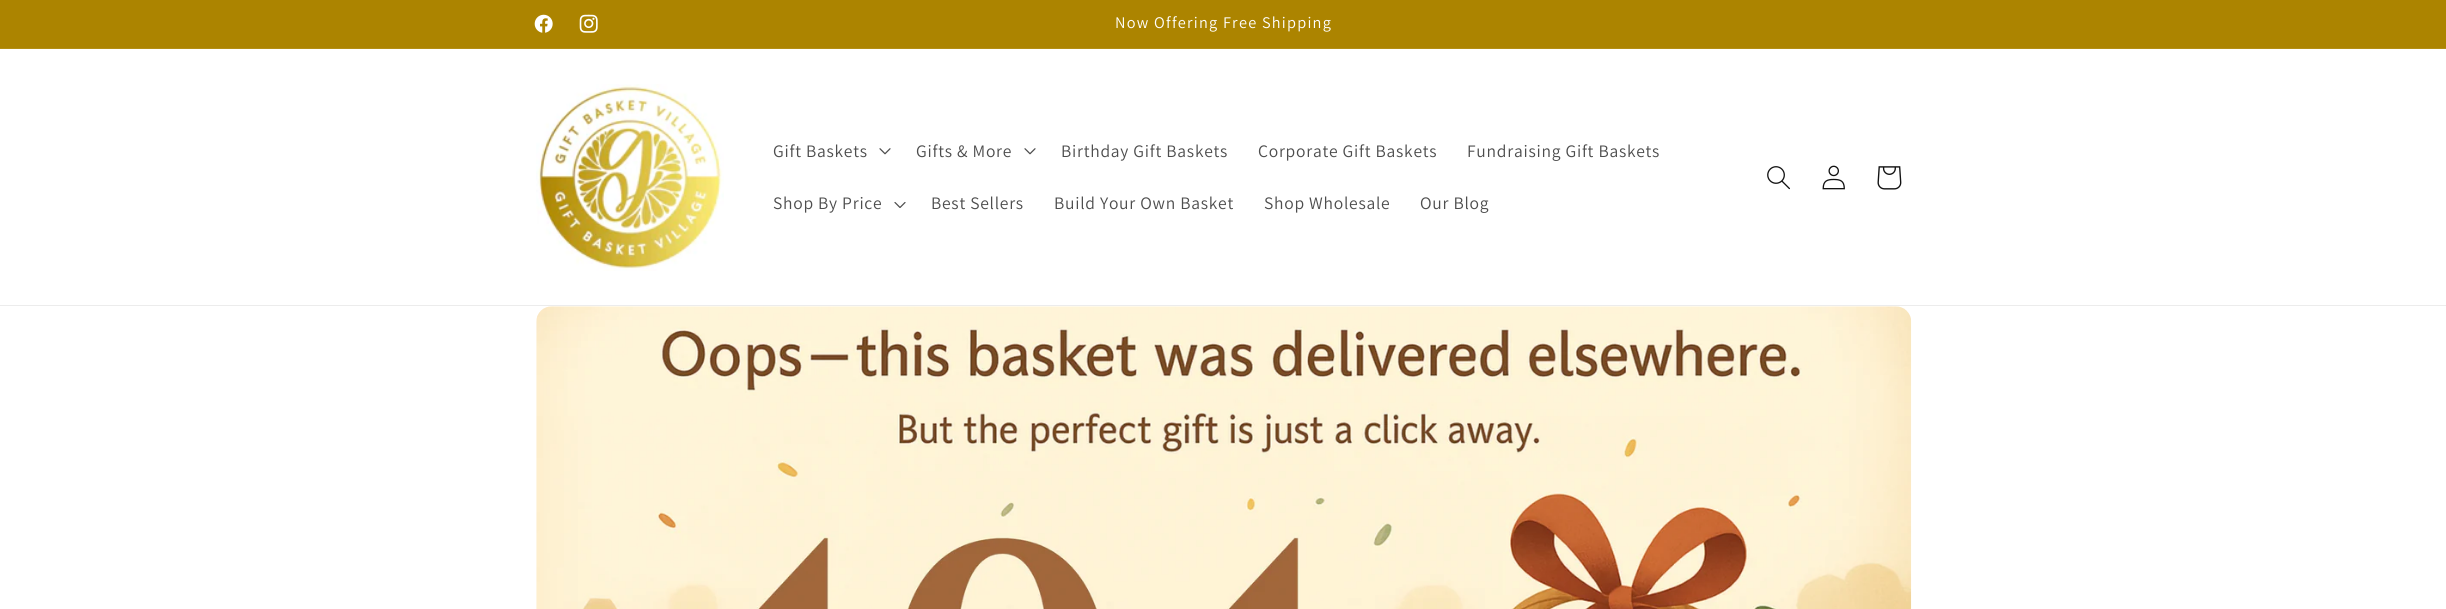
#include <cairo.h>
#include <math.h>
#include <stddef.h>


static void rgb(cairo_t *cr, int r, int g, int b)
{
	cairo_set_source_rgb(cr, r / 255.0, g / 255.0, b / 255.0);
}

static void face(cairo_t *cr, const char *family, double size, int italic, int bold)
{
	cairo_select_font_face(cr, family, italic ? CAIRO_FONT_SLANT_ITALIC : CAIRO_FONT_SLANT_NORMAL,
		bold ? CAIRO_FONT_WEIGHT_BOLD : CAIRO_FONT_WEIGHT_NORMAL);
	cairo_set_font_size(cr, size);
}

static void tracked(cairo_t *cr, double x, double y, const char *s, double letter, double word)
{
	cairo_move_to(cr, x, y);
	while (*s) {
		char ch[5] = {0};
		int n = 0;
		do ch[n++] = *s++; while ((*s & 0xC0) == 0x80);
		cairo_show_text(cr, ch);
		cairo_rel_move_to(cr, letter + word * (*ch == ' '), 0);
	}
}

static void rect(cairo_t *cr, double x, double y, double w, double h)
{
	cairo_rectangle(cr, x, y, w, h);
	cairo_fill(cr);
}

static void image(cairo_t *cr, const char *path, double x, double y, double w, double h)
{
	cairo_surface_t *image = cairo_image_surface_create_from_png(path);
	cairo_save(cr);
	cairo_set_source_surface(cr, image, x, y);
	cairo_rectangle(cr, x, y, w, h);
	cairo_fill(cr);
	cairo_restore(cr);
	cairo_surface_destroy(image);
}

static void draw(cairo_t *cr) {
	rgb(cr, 255, 255, 255);
	cairo_paint(cr);
	rgb(cr, 172, 132, 0);
	rect(cr, 0, 0, 2446, 48);
	rgb(cr, 179, 142, 20);
	rect(cr, 0, 48, 2446, 1);
	image(cr, "image0.png", 534, 14, 19, 19);
	image(cr, "image1.png", 579, 14, 19, 19);
	face(cr, "Assistant", 16.25, 0, 0);
	rgb(cr, 255, 255, 255);
	tracked(cr, 1115, 28, "Now Offering Free Shipping", 1.25, 0);
	rgb(cr, 236, 236, 236);
	rect(cr, 0, 305, 2446, 1);
	image(cr, "image2.png", 536, 84, 188, 187);
	face(cr, "Assistant", 17.5, 0, 0);
	rgb(cr, 77, 77, 77);
	tracked(cr, 773, 157, "Gift Baskets", 0.75, 0);
	image(cr, "image3.png", 879, 148, 12, 7);
	tracked(cr, 916, 157, "Gifts & More", 0.75, 0);
	image(cr, "image3.png", 1024, 148, 12, 7);
	tracked(cr, 1061, 157, "Birthday Gift Baskets", 0.75, 0);
	tracked(cr, 1258, 157, "Corporate Gift Baskets", 0.75, 0);
	tracked(cr, 1467, 157, "Fundraising Gift Baskets", 0.75, 0);
	tracked(cr, 773, 209, "Shop By Price", 0.75, 0);
	image(cr, "image4.png", 894, 202, 12, 6);
	tracked(cr, 931, 209, "Best Sellers", 0.75, 0);
	tracked(cr, 1054, 209, "Build Your Own Basket", 0.75, 0);
	tracked(cr, 1264, 209, "Shop Wholesale", 0.75, 0);
	tracked(cr, 1420, 209, "Our Blog", 0.75, 0);
	image(cr, "image5.png", 1767, 166, 23, 24);
	image(cr, "image6.png", 1822, 165, 23, 25);
	image(cr, "image7.png", 1877, 166, 25, 24);
	image(cr, "image8.png", 536, 306, 1376, 303);
}

int main(void) {
	cairo_surface_t *surface = cairo_image_surface_create(CAIRO_FORMAT_RGB24, 2446, 609);
	cairo_t *cr = cairo_create(surface);
	cairo_font_options_t *options = cairo_font_options_create();
	cairo_font_options_set_hint_metrics(options, CAIRO_HINT_METRICS_OFF);
	cairo_font_options_set_hint_style(options, CAIRO_HINT_STYLE_NONE);
	cairo_set_font_options(cr, options);
	cairo_set_miter_limit(cr, 4);
	draw(cr);
	cairo_surface_write_to_png(surface, "render.png");
	cairo_font_options_destroy(options);
	cairo_destroy(cr);
	cairo_surface_destroy(surface);
	return 0;
}
